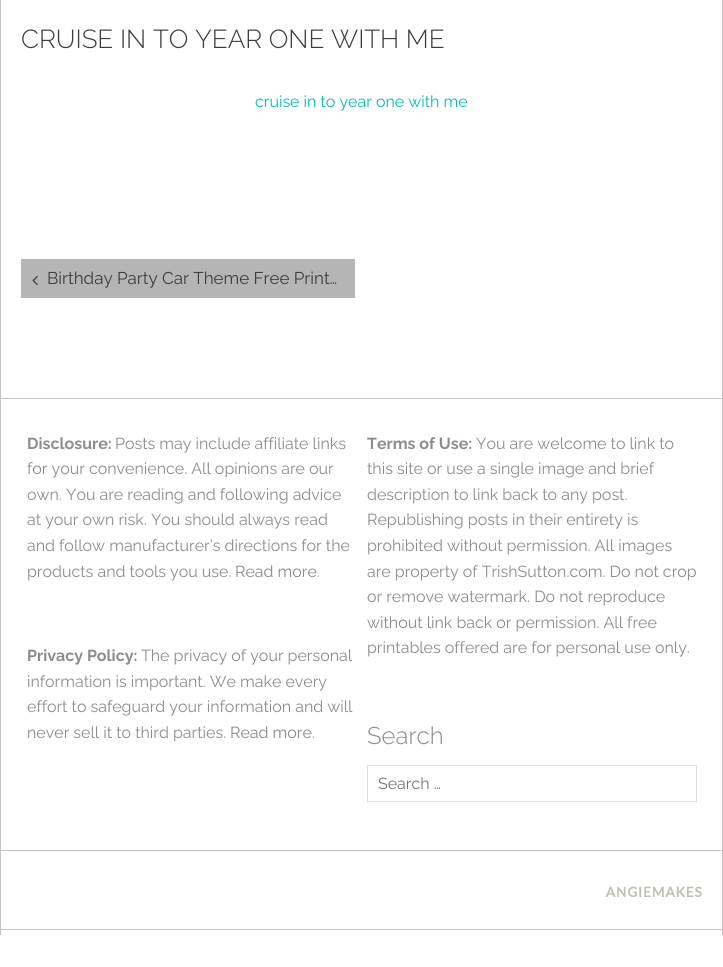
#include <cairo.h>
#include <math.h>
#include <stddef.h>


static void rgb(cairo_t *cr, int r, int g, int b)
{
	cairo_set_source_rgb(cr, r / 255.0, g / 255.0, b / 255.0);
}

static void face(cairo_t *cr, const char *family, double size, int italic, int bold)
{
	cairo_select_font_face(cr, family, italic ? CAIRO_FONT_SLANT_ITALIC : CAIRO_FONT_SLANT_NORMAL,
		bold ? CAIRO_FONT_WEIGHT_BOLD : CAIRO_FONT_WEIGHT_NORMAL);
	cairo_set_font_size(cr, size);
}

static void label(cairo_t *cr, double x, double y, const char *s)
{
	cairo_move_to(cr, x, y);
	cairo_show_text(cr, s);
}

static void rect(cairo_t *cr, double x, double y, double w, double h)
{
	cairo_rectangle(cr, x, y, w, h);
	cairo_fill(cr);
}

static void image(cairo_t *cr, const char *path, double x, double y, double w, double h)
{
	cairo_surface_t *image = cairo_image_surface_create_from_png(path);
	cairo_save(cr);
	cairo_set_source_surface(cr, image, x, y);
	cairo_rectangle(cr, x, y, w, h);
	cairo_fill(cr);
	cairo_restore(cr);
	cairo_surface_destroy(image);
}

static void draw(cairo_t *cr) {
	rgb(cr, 255, 255, 255);
	cairo_paint(cr);
	rgb(cr, 199, 195, 196);
	rect(cr, 722, 0, 1, 935);
	rect(cr, 0, 0, 1, 935);
	rect(cr, 1, 929, 721, 1);
	face(cr, "Raleway Light", 26, 0, 0);
	rgb(cr, 61, 61, 61);
	label(cr, 21, 48, "CRUISE IN TO YEAR ONE WITH ME");
	face(cr, "Raleway", 16, 0, 0);
	rgb(cr, 10, 186, 183);
	label(cr, 255, 107, "cruise in to year one with me");
	rgb(cr, 181, 181, 181);
	rect(cr, 21, 259, 334, 39);
	image(cr, "image0.png", 32, 275, 6, 11);
	face(cr, "Raleway", 17, 0, 0);
	rgb(cr, 61, 61, 61);
	label(cr, 47, 284, "Birthday Party Car Theme Free Print…");
	rgb(cr, 199, 195, 196);
	rect(cr, 1, 398, 721, 1);
	face(cr, "Raleway", 16, 0, 1);
	rgb(cr, 145, 140, 137);
	label(cr, 27, 449, "Disclosure:");
	face(cr, "Raleway", 16, 0, 0);
	label(cr, 115, 449, "Posts may include affiliate links");
	label(cr, 27, 474, "for your convenience. All opinions are our");
	label(cr, 27, 500, "own. You are reading and following advice");
	label(cr, 27, 525, "at your own risk. You should always read");
	label(cr, 27, 551, "and follow manufacturer’s directions for the");
	label(cr, 27, 577, "products and tools you use.");
	rgb(cr, 139, 137, 135);
	label(cr, 235, 577, "Read more.");
	face(cr, "Raleway", 16, 0, 1);
	rgb(cr, 145, 140, 137);
	label(cr, 367, 449, "Terms of Use:");
	face(cr, "Raleway", 16, 0, 0);
	label(cr, 476, 449, "You are welcome to link to");
	label(cr, 367, 474, "this site or use a single image and brief");
	label(cr, 367, 500, "description to link back to any post.");
	label(cr, 367, 525, "Republishing posts in their entirety is");
	label(cr, 367, 551, "prohibited without permission. All images");
	label(cr, 367, 577, "are property of TrishSutton.com. Do not crop");
	label(cr, 367, 602, "or remove watermark. Do not reproduce");
	label(cr, 367, 628, "without link back or permission. All free");
	label(cr, 367, 653, "printables offered are for personal use only.");
	face(cr, "Raleway", 16, 0, 1);
	label(cr, 27, 661, "Privacy Policy:");
	face(cr, "Raleway", 16, 0, 0);
	label(cr, 141, 661, "The privacy of your personal");
	label(cr, 27, 687, "information is important. We make every");
	label(cr, 27, 712, "effort to safeguard your information and will");
	label(cr, 27, 738, "never sell it to third parties.");
	rgb(cr, 139, 137, 135);
	label(cr, 230, 738, "Read more.");
	face(cr, "Raleway Light", 24, 0, 0);
	label(cr, 367, 744, "Search");
	cairo_rectangle(cr, 367.5, 765.5, 329, 36);
	rgb(cr, 225, 223, 217);
	cairo_set_line_width(cr, 1);
	cairo_stroke(cr);
	face(cr, "Raleway", 16, 0, 0);
	rgb(cr, 117, 117, 117);
	label(cr, 378, 789, "Search …");
	rgb(cr, 199, 195, 196);
	rect(cr, 1, 850, 721, 1);
	image(cr, "image1.png", 605, 886, 97, 11);
}

int main(void) {
	cairo_surface_t *surface = cairo_image_surface_create(CAIRO_FORMAT_RGB24, 723, 967);
	cairo_t *cr = cairo_create(surface);
	cairo_font_options_t *options = cairo_font_options_create();
	cairo_font_options_set_hint_metrics(options, CAIRO_HINT_METRICS_OFF);
	cairo_font_options_set_hint_style(options, CAIRO_HINT_STYLE_NONE);
	cairo_set_font_options(cr, options);
	cairo_set_miter_limit(cr, 4);
	draw(cr);
	cairo_surface_write_to_png(surface, "render.png");
	cairo_font_options_destroy(options);
	cairo_destroy(cr);
	cairo_surface_destroy(surface);
	return 0;
}
